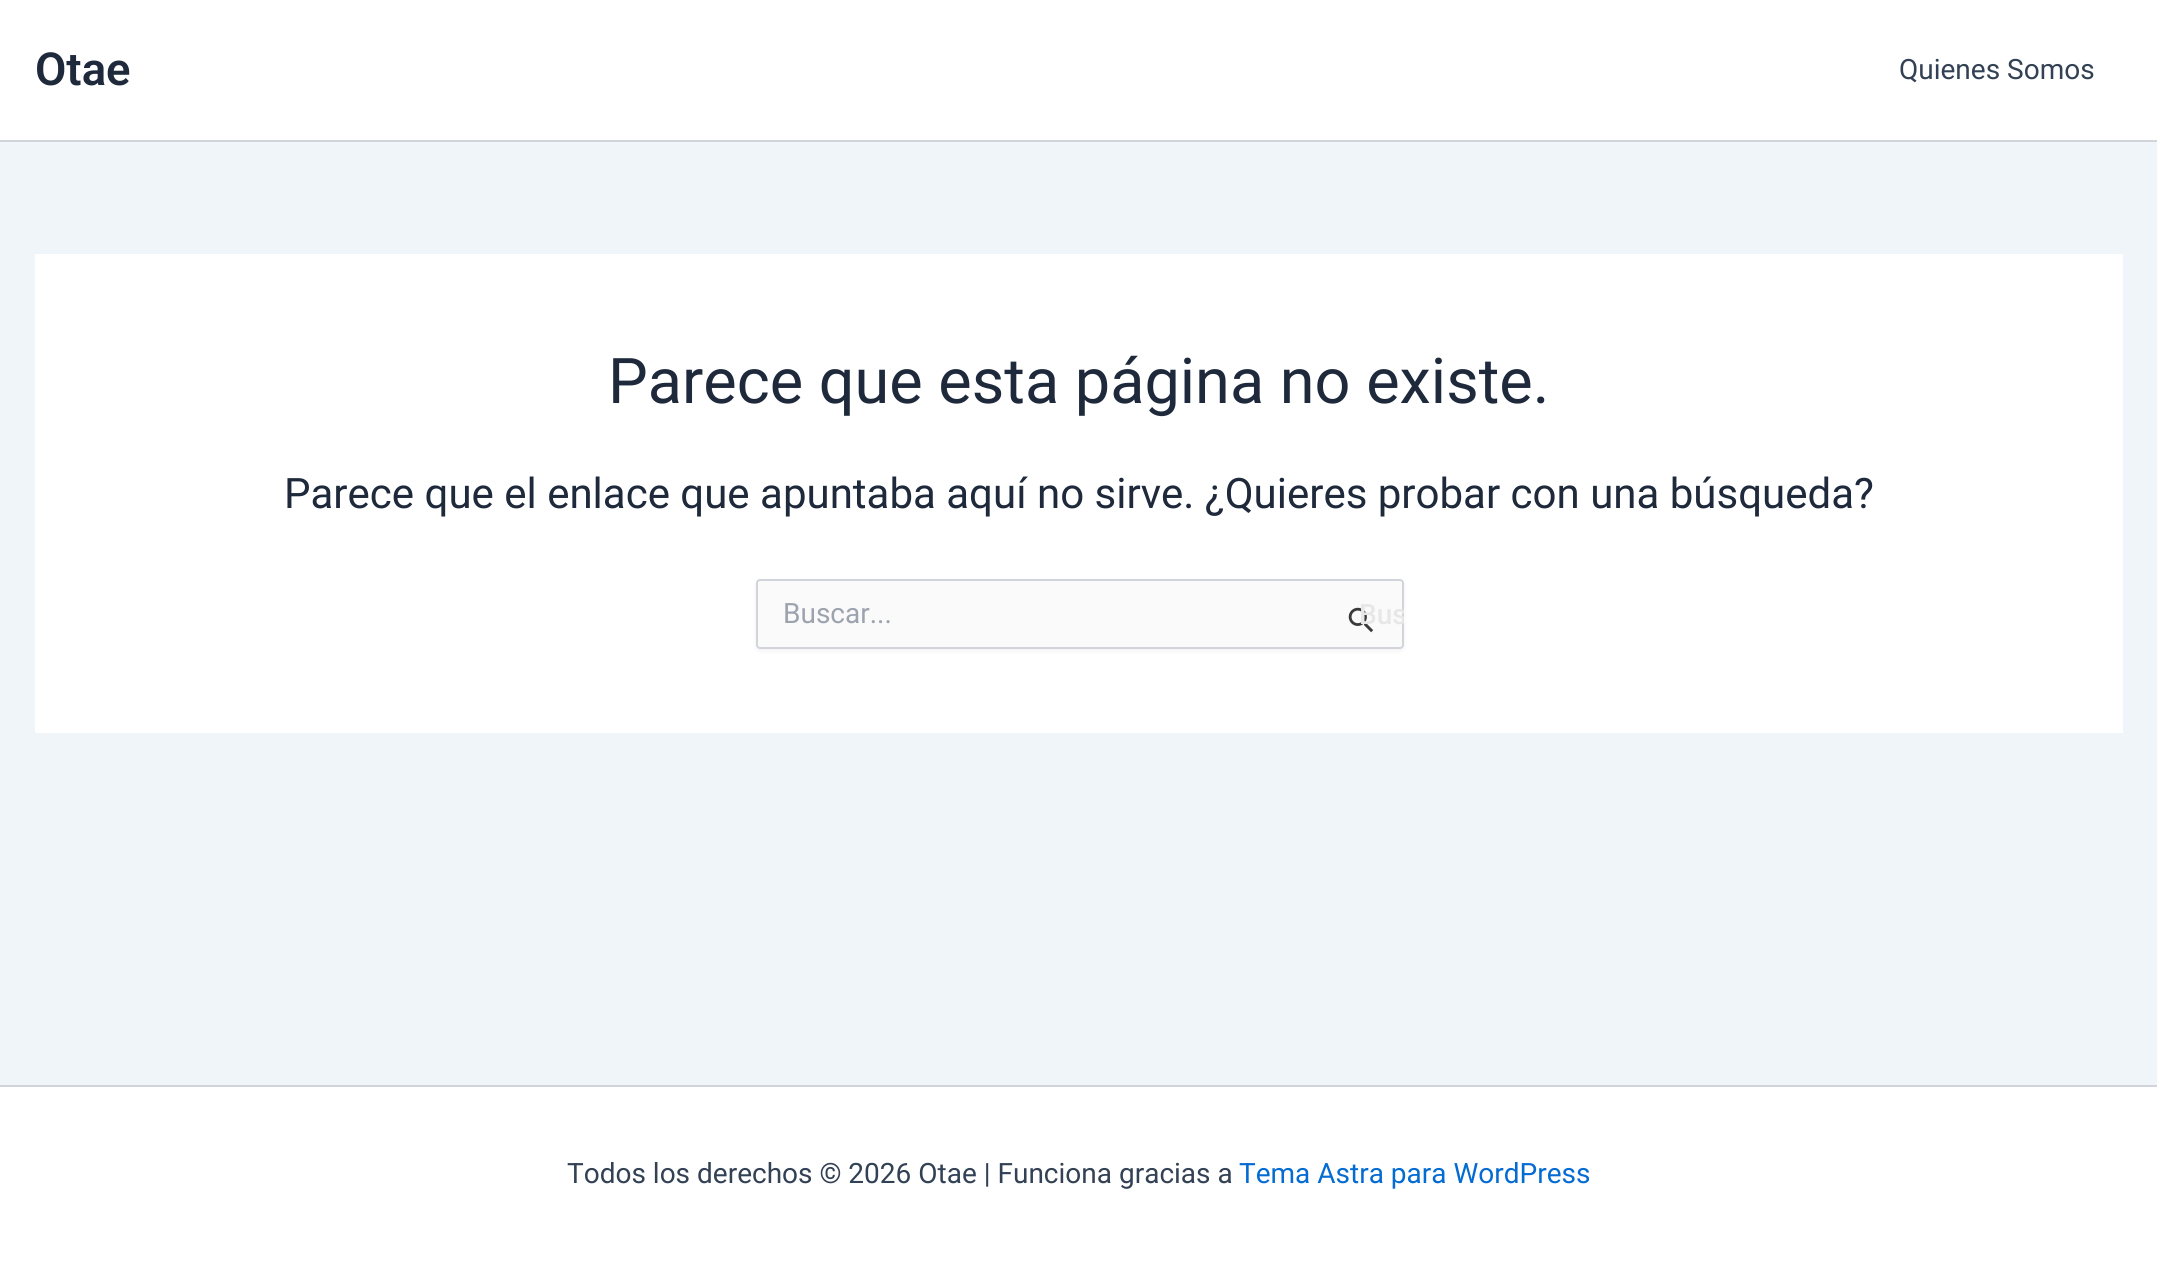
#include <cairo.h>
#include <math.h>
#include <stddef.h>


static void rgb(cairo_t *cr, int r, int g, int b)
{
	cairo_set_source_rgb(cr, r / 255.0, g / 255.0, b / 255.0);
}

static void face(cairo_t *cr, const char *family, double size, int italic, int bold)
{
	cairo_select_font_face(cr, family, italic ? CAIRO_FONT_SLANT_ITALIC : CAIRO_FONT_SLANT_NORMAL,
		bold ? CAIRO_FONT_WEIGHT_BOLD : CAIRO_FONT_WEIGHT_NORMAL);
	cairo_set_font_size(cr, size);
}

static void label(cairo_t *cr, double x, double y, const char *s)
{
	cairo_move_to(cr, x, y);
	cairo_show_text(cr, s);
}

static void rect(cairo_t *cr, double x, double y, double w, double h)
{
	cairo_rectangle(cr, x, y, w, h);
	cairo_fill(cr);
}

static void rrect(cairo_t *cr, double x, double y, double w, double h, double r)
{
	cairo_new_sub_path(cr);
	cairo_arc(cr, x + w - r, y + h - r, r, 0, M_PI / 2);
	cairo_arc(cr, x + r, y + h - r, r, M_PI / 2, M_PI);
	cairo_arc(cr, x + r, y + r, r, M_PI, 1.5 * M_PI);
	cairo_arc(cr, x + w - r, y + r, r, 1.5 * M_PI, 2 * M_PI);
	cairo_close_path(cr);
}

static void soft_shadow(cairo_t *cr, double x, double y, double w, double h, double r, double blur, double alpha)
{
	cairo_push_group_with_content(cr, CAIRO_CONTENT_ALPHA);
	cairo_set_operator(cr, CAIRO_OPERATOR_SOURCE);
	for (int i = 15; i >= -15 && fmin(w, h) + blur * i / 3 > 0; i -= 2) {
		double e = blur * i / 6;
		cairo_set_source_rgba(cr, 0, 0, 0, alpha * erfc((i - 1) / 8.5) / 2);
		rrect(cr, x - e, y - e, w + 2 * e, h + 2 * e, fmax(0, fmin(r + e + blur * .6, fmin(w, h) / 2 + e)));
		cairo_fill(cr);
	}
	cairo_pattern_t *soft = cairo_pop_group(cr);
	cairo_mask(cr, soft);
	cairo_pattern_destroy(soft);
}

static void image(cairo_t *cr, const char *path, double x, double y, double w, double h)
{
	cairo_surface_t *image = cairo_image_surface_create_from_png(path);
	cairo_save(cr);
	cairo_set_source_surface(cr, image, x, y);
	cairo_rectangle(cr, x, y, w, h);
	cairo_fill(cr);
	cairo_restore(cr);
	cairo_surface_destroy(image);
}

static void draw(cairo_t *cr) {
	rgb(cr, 240, 245, 250);
	cairo_paint(cr);
	rgb(cr, 255, 255, 255);
	rect(cr, 0, 0, 2157, 140);
	rgb(cr, 209, 213, 219);
	rect(cr, 0, 140, 2157, 2);
	face(cr, "Roboto SemiBold", 45.5, 0, 0);
	rgb(cr, 30, 41, 59);
	label(cr, 35, 85, "Otae");
	face(cr, "Roboto", 28, 0, 0);
	rgb(cr, 51, 65, 85);
	label(cr, 1899, 79, "Quienes Somos");
	rgb(cr, 255, 255, 255);
	rect(cr, 35, 254, 2088, 479);
	face(cr, "Roboto", 63, 0, 0);
	rgb(cr, 30, 41, 59);
	label(cr, 608, 403, "Parece que esta página no existe.");
	face(cr, "Roboto", 42, 0, 0);
	label(cr, 284, 508, "Parece que el enlace que apuntaba aquí no sirve. ¿Quieres probar con una búsqueda?");
	rgb(cr, 0, 0, 0);
	soft_shadow(cr, 756, 581, 648, 70, 4, 2, 0.05);
	rgb(cr, 250, 250, 250);
	rrect(cr, 757, 580, 646, 68, 3);
	cairo_fill_preserve(cr);
	rgb(cr, 209, 213, 219);
	cairo_stroke(cr);
	face(cr, "Roboto", 28, 0, 0);
	rgb(cr, 156, 163, 175);
	label(cr, 783, 623, "Buscar...");
	image(cr, "image0.png", 1348, 607, 26, 26);
	cairo_save(cr);
	rrect(cr, 1325, 579, 79, 74, 4);
	cairo_clip(cr);
	face(cr, "Roboto Medium", 28, 0, 0);
	rgb(cr, 231, 231, 231);
	label(cr, 1359, 624, "Bus");
	cairo_restore(cr);
	rgb(cr, 255, 255, 255);
	rect(cr, 0, 1087, 2157, 174);
	rgb(cr, 209, 213, 219);
	rect(cr, 0, 1085, 2157, 2);
	rgb(cr, 51, 65, 85);
	label(cr, 567, 1183, "Todos los derechos © 2026 Otae | Funciona gracias a");
	rgb(cr, 4, 107, 210);
	label(cr, 1239, 1183, "Tema Astra para WordPress");
}

int main(void) {
	cairo_surface_t *surface = cairo_image_surface_create(CAIRO_FORMAT_RGB24, 2157, 1261);
	cairo_t *cr = cairo_create(surface);
	cairo_font_options_t *options = cairo_font_options_create();
	cairo_font_options_set_hint_metrics(options, CAIRO_HINT_METRICS_OFF);
	cairo_font_options_set_hint_style(options, CAIRO_HINT_STYLE_NONE);
	cairo_set_font_options(cr, options);
	cairo_set_miter_limit(cr, 4);
	draw(cr);
	cairo_surface_write_to_png(surface, "render.png");
	cairo_font_options_destroy(options);
	cairo_destroy(cr);
	cairo_surface_destroy(surface);
	return 0;
}
